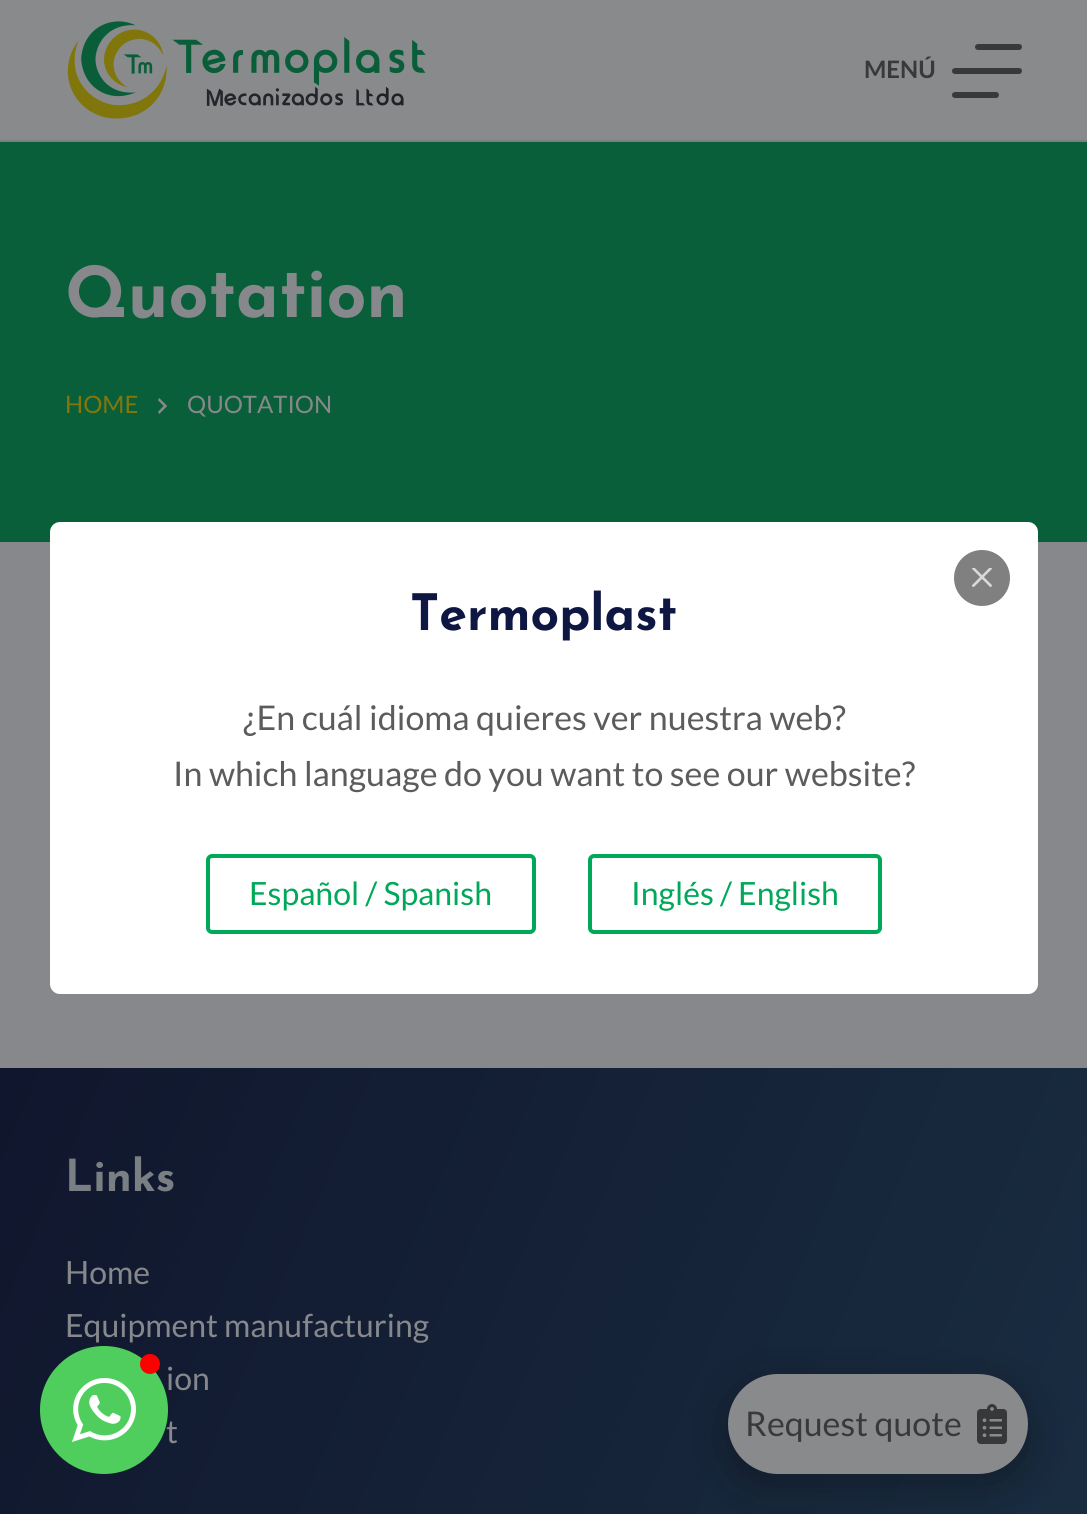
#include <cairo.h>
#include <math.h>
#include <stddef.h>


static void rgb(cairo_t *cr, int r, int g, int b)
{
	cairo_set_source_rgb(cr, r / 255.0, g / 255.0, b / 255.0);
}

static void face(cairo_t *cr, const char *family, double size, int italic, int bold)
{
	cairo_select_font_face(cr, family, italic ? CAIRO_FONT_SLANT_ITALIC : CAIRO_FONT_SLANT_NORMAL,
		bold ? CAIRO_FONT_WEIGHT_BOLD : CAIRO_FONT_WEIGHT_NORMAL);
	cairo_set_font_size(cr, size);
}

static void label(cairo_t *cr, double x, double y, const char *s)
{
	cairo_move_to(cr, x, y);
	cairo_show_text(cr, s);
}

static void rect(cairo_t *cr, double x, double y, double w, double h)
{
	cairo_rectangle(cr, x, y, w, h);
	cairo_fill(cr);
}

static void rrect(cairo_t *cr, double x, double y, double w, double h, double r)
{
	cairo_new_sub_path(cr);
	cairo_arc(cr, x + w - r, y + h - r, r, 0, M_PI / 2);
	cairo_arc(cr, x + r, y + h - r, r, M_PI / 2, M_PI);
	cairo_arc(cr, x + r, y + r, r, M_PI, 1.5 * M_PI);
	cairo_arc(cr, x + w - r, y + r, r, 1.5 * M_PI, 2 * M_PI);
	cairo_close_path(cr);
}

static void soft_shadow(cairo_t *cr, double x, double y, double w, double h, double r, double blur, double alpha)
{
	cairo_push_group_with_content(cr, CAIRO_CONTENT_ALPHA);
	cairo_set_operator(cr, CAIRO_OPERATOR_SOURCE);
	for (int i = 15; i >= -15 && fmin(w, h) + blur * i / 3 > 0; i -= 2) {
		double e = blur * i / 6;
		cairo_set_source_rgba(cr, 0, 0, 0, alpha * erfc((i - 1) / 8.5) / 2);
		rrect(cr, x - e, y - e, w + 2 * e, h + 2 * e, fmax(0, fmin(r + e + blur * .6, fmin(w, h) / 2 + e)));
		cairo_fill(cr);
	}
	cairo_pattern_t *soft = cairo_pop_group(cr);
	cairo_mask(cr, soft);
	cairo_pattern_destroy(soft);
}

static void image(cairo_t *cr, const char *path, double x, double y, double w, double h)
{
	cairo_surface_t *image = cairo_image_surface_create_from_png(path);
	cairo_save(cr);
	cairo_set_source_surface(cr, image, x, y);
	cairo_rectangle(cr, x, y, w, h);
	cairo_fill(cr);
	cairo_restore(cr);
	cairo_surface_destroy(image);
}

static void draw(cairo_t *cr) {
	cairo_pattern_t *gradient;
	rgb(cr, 134, 136, 139);
	cairo_paint(cr);
	rgb(cr, 9, 95, 57);
	rect(cr, 0, 142, 1087, 400);
	face(cr, "Josefin Sans", 70, 0, 1);
	rgb(cr, 134, 136, 139);
	label(cr, 65, 317, "Quotation");
	face(cr, "Lato", 24, 0, 0);
	rgb(cr, 129, 119, 13);
	label(cr, 65, 413, "HOME");
	image(cr, "image0.png", 158, 398, 10, 16);
	rgb(cr, 134, 136, 139);
	label(cr, 187, 413, "QUOTATION");
	rgb(cr, 137, 138, 140);
	rect(cr, 0, 0, 1087, 140);
	rgb(cr, 122, 127, 131);
	rect(cr, 0, 140, 1087, 2);
	image(cr, "image1.png", 67, 21, 359, 98);
	face(cr, "Lato", 24, 0, 1);
	rgb(cr, 55, 57, 59);
	label(cr, 864, 78, "MENÚ");
	rrect(cr, 975, 44, 47, 6, 3);
	cairo_fill(cr);
	rrect(cr, 952, 68, 70, 6, 3);
	cairo_fill(cr);
	rrect(cr, 952, 92, 47, 6, 3);
	cairo_fill(cr);
	gradient = cairo_pattern_create_linear(-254, 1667, 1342, 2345);
	cairo_pattern_add_color_stop_rgba(gradient, 0, 0.063, 0.086, 0.176, 1);
	cairo_pattern_add_color_stop_rgba(gradient, 1, 0.114, 0.216, 0.29, 1);
	cairo_set_source(cr, gradient);
	cairo_pattern_destroy(gradient);
	rect(cr, 0, 1068, 1087, 446);
	rgb(cr, 9, 11, 13);
	soft_shadow(cr, 728, 1384, 300, 100, 50, 20, 0.4);
	rgb(cr, 137, 138, 140);
	rrect(cr, 728, 1374, 300, 100, 50);
	cairo_fill(cr);
	face(cr, "Lato", 34, 0, 0);
	rgb(cr, 55, 57, 59);
	label(cr, 745, 1436, "Request quote");
	image(cr, "image2.png", 977, 1404, 30, 40);
	face(cr, "Josefin Sans", 44, 0, 1);
	rgb(cr, 122, 127, 131);
	label(cr, 65, 1191, "Links");
	face(cr, "Lato", 32, 0, 0);
	rgb(cr, 134, 136, 139);
	label(cr, 65, 1284, "Home");
	label(cr, 65, 1337, "Equipment manufacturing");
	label(cr, 166, 1390, "ion");
	label(cr, 166, 1443, "t");
	rgb(cr, 255, 255, 255);
	rrect(cr, 50, 522, 988, 472, 10);
	cairo_fill(cr);
	rgb(cr, 128, 128, 128);
	cairo_arc(cr, 982, 578, 28, 0, 2 * M_PI);
	cairo_fill(cr);
	image(cr, "image3.png", 972, 568, 20, 19);
	face(cr, "Josefin Sans", 50, 0, 1);
	rgb(cr, 13, 23, 65);
	label(cr, 410, 630, "Termoplast");
	face(cr, "Lato", 34, 0, 0);
	rgb(cr, 92, 92, 92);
	label(cr, 243, 730, "¿En cuál idioma quieres ver nuestra web?");
	label(cr, 173, 786, "In which language do you want to see our website?");
	rrect(cr, 208, 856, 326, 76, 4);
	rgb(cr, 0, 168, 89);
	cairo_set_line_width(cr, 4);
	cairo_stroke(cr);
	face(cr, "Lato", 32, 0, 0);
	label(cr, 249, 905, "Español / Spanish");
	rrect(cr, 590, 856, 290, 76, 4);
	cairo_stroke(cr);
	label(cr, 631, 905, "Inglés / English");
	rgb(cr, 79, 206, 93);
	cairo_new_path(cr);
	cairo_arc(cr, 104, 1410, 64, 0, 2 * M_PI);
	cairo_fill(cr);
	rgb(cr, 255, 0, 0);
	cairo_arc(cr, 150, 1364, 10, 0, 2 * M_PI);
	cairo_fill(cr);
	image(cr, "image4.png", 72, 1378, 64, 64);
}

int main(void) {
	cairo_surface_t *surface = cairo_image_surface_create(CAIRO_FORMAT_RGB24, 1087, 1514);
	cairo_t *cr = cairo_create(surface);
	cairo_font_options_t *options = cairo_font_options_create();
	cairo_font_options_set_hint_metrics(options, CAIRO_HINT_METRICS_OFF);
	cairo_font_options_set_hint_style(options, CAIRO_HINT_STYLE_NONE);
	cairo_set_font_options(cr, options);
	cairo_set_miter_limit(cr, 4);
	draw(cr);
	cairo_surface_write_to_png(surface, "render.png");
	cairo_font_options_destroy(options);
	cairo_destroy(cr);
	cairo_surface_destroy(surface);
	return 0;
}
